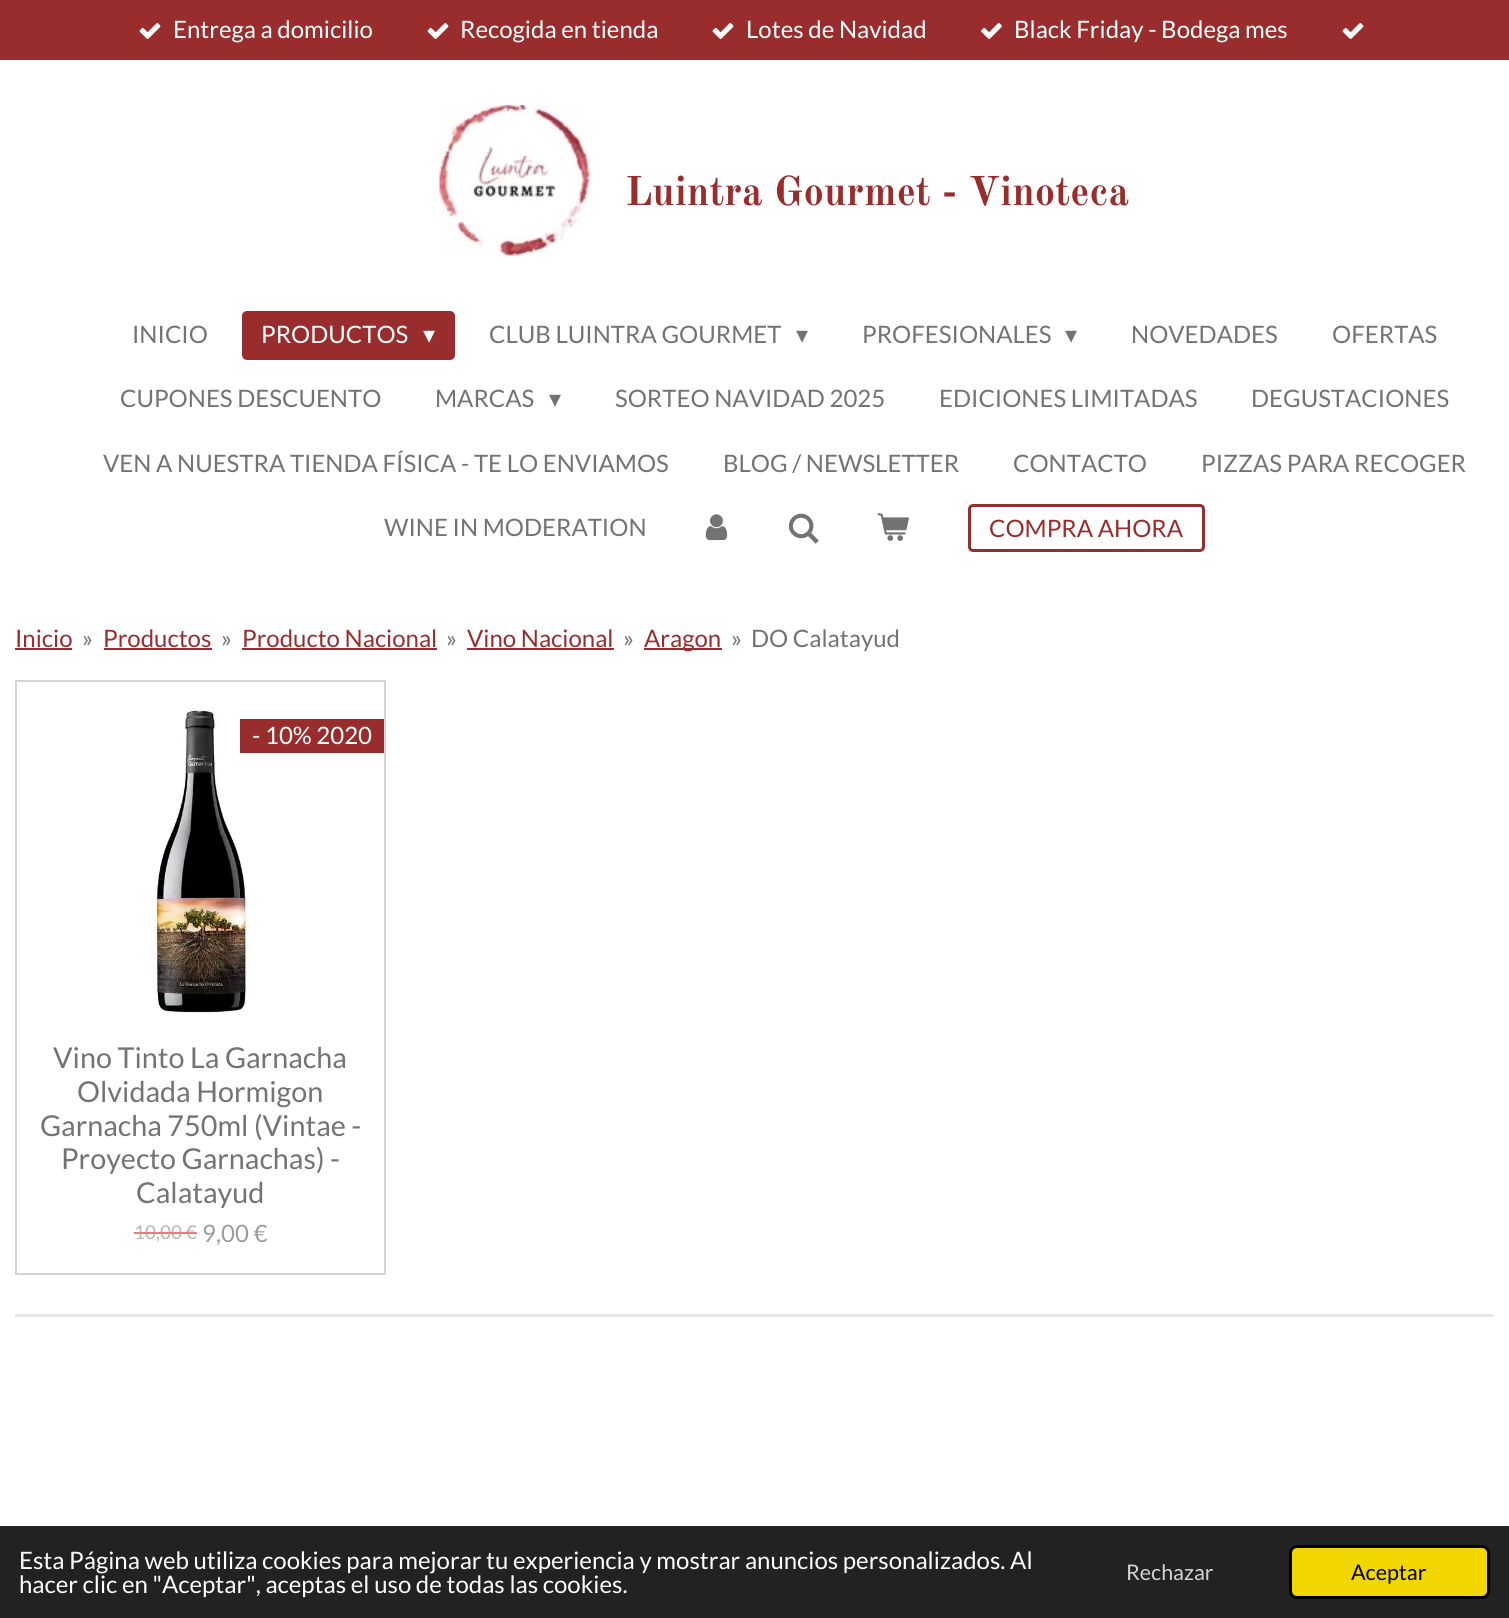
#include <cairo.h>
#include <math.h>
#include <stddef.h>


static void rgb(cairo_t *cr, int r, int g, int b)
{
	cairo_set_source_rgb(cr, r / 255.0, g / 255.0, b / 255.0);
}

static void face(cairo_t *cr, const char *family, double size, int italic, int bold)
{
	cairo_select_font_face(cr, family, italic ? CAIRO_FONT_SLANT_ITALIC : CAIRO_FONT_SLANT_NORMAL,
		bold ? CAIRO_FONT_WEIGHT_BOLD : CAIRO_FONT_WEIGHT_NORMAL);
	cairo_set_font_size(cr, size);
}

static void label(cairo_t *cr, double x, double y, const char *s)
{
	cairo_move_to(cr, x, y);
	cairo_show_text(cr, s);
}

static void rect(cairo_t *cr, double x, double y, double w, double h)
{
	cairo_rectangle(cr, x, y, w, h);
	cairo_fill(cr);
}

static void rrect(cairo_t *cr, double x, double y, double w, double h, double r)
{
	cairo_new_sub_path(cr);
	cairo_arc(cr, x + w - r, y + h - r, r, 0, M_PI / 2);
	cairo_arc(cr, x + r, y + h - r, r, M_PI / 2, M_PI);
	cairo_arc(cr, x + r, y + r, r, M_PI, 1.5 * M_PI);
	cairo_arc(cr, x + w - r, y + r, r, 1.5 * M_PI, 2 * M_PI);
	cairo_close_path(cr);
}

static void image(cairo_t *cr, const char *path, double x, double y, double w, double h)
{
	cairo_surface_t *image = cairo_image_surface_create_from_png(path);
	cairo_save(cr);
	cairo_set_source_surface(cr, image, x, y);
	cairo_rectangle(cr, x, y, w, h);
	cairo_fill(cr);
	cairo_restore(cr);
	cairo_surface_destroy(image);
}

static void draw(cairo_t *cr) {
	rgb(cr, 255, 255, 255);
	cairo_paint(cr);
	rgb(cr, 153, 45, 45);
	rect(cr, 0, 0, 1509, 60);
	image(cr, "image0.png", 139, 23, 22, 16);
	face(cr, "Lato", 24, 0, 0);
	rgb(cr, 255, 255, 255);
	label(cr, 173, 38, "Entrega a domicilio");
	image(cr, "image0.png", 427, 23, 22, 16);
	label(cr, 460, 38, "Recogida en tienda");
	image(cr, "image0.png", 712, 23, 22, 16);
	label(cr, 746, 38, "Lotes de Navidad");
	image(cr, "image1.png", 981, 23, 21, 16);
	label(cr, 1014, 38, "Black Friday - Bodega mes");
	image(cr, "image0.png", 1342, 23, 22, 16);
	image(cr, "image2.png", 439, 105, 151, 152);
	face(cr, "Old Standard TT", 40.75, 0, 1);
	rgb(cr, 153, 45, 45);
	label(cr, 625, 205, "Luintra Gourmet - Vinoteca");
	face(cr, "Lato", 24, 0, 0);
	rgb(cr, 115, 115, 115);
	label(cr, 132, 343, "INICIO");
	rgb(cr, 153, 45, 45);
	rrect(cr, 242, 311, 213, 49, 5);
	cairo_fill(cr);
	rgb(cr, 255, 255, 255);
	label(cr, 261, 343, "PRODUCTOS");
	face(cr, "DejaVu Sans", 24, 0, 0);
	label(cr, 423, 343, "▾");
	face(cr, "Lato", 24, 0, 0);
	rgb(cr, 115, 115, 115);
	label(cr, 489, 343, "CLUB LUINTRA GOURMET");
	face(cr, "DejaVu Sans", 24, 0, 0);
	label(cr, 796, 343, "▾");
	face(cr, "Lato", 24, 0, 0);
	label(cr, 862, 343, "PROFESIONALES");
	face(cr, "DejaVu Sans", 24, 0, 0);
	label(cr, 1065, 343, "▾");
	face(cr, "Lato", 24, 0, 0);
	label(cr, 1131, 343, "NOVEDADES");
	label(cr, 1332, 343, "OFERTAS");
	label(cr, 120, 407, "CUPONES DESCUENTO");
	label(cr, 435, 407, "MARCAS");
	face(cr, "DejaVu Sans", 24, 0, 0);
	label(cr, 549, 407, "▾");
	face(cr, "Lato", 24, 0, 0);
	label(cr, 615, 407, "SORTEO NAVIDAD 2025");
	label(cr, 939, 407, "EDICIONES LIMITADAS");
	label(cr, 1251, 407, "DEGUSTACIONES");
	label(cr, 103, 472, "VEN A NUESTRA TIENDA FÍSICA - TE LO ENVIAMOS");
	label(cr, 723, 472, "BLOG / NEWSLETTER");
	label(cr, 1013, 472, "CONTACTO");
	label(cr, 1201, 472, "PIZZAS PARA RECOGER");
	label(cr, 384, 536, "WINE IN MODERATION");
	image(cr, "image3.png", 705, 514, 23, 27);
	image(cr, "image4.png", 788, 513, 31, 31);
	image(cr, "image5.png", 877, 513, 32, 28);
	rrect(cr, 969.5, 505.5, 234, 45, 3.5);
	rgb(cr, 153, 45, 45);
	cairo_set_line_width(cr, 3);
	cairo_stroke(cr);
	label(cr, 989, 537, "COMPRA AHORA");
	label(cr, 15, 647, "Inicio");
	rect(cr, 15, 648, 57, 2);
	rgb(cr, 115, 115, 115);
	label(cr, 82, 647, "»");
	rgb(cr, 153, 45, 45);
	label(cr, 103, 647, "Productos");
	rect(cr, 104, 648, 108, 2);
	rgb(cr, 115, 115, 115);
	label(cr, 221, 647, "»");
	rgb(cr, 153, 45, 45);
	label(cr, 242, 647, "Producto Nacional");
	rect(cr, 242, 648, 195, 2);
	rgb(cr, 115, 115, 115);
	label(cr, 446, 647, "»");
	rgb(cr, 153, 45, 45);
	label(cr, 467, 647, "Vino Nacional");
	rect(cr, 467, 648, 147, 2);
	rgb(cr, 115, 115, 115);
	label(cr, 623, 647, "»");
	rgb(cr, 153, 45, 45);
	rect(cr, 644, 648, 78, 2);
	label(cr, 644, 647, "Aragon");
	rgb(cr, 115, 115, 115);
	label(cr, 731, 647, "»");
	label(cr, 751, 647, "DO Calatayud");
	cairo_rectangle(cr, 16, 681, 369, 593);
	rgb(cr, 213, 213, 213);
	cairo_set_line_width(cr, 2);
	cairo_stroke(cr);
	image(cr, "image6.png", 154, 710, 96, 304);
	rgb(cr, 153, 45, 45);
	rect(cr, 240, 719, 144, 34);
	rgb(cr, 255, 255, 255);
	label(cr, 252, 744, "- 10% 2020");
	face(cr, "Lato", 28.75, 0, 0);
	rgb(cr, 115, 115, 115);
	label(cr, 53, 1068, "Vino Tinto La Garnacha");
	label(cr, 77, 1102, "Olvidada Hormigon");
	label(cr, 40, 1136, "Garnacha 750ml (Vintae -");
	label(cr, 61, 1169, "Proyecto Garnachas) -");
	label(cr, 136, 1203, "Calatayud");
	face(cr, "Lato", 19, 0, 0);
	rgb(cr, 182, 182, 182);
	label(cr, 134, 1239, "10,00 €");
	rgb(cr, 227, 126, 123);
	rect(cr, 134, 1232, 63, 2);
	face(cr, "Lato", 24, 0, 0);
	rgb(cr, 157, 157, 157);
	label(cr, 202, 1242, "9,00 €");
	rgb(cr, 230, 230, 230);
	rect(cr, 15, 1314, 1479, 3);
	rgb(cr, 34, 34, 34);
	rect(cr, 0, 1526, 1509, 92);
	rgb(cr, 255, 255, 255);
	label(cr, 19, 1569, "Esta Página web utiliza cookies para mejorar tu experiencia y mostrar anuncios personalizados. Al");
	label(cr, 19, 1593, "hacer clic en \"Aceptar\", aceptas el uso de todas las cookies.");
	face(cr, "Lato", 21.5, 0, 0);
	rgb(cr, 211, 211, 211);
	label(cr, 1126, 1580, "Rechazar");
	rgb(cr, 241, 214, 0);
	rrect(cr, 1290.5, 1546.5, 198, 51, 6.5);
	cairo_fill_preserve(cr);
	rgb(cr, 0, 0, 0);
	cairo_set_line_width(cr, 3);
	cairo_stroke(cr);
	label(cr, 1351, 1580, "Aceptar");
}

int main(void) {
	cairo_surface_t *surface = cairo_image_surface_create(CAIRO_FORMAT_RGB24, 1509, 1618);
	cairo_t *cr = cairo_create(surface);
	cairo_font_options_t *options = cairo_font_options_create();
	cairo_font_options_set_hint_metrics(options, CAIRO_HINT_METRICS_OFF);
	cairo_font_options_set_hint_style(options, CAIRO_HINT_STYLE_NONE);
	cairo_set_font_options(cr, options);
	cairo_set_miter_limit(cr, 4);
	draw(cr);
	cairo_surface_write_to_png(surface, "render.png");
	cairo_font_options_destroy(options);
	cairo_destroy(cr);
	cairo_surface_destroy(surface);
	return 0;
}
